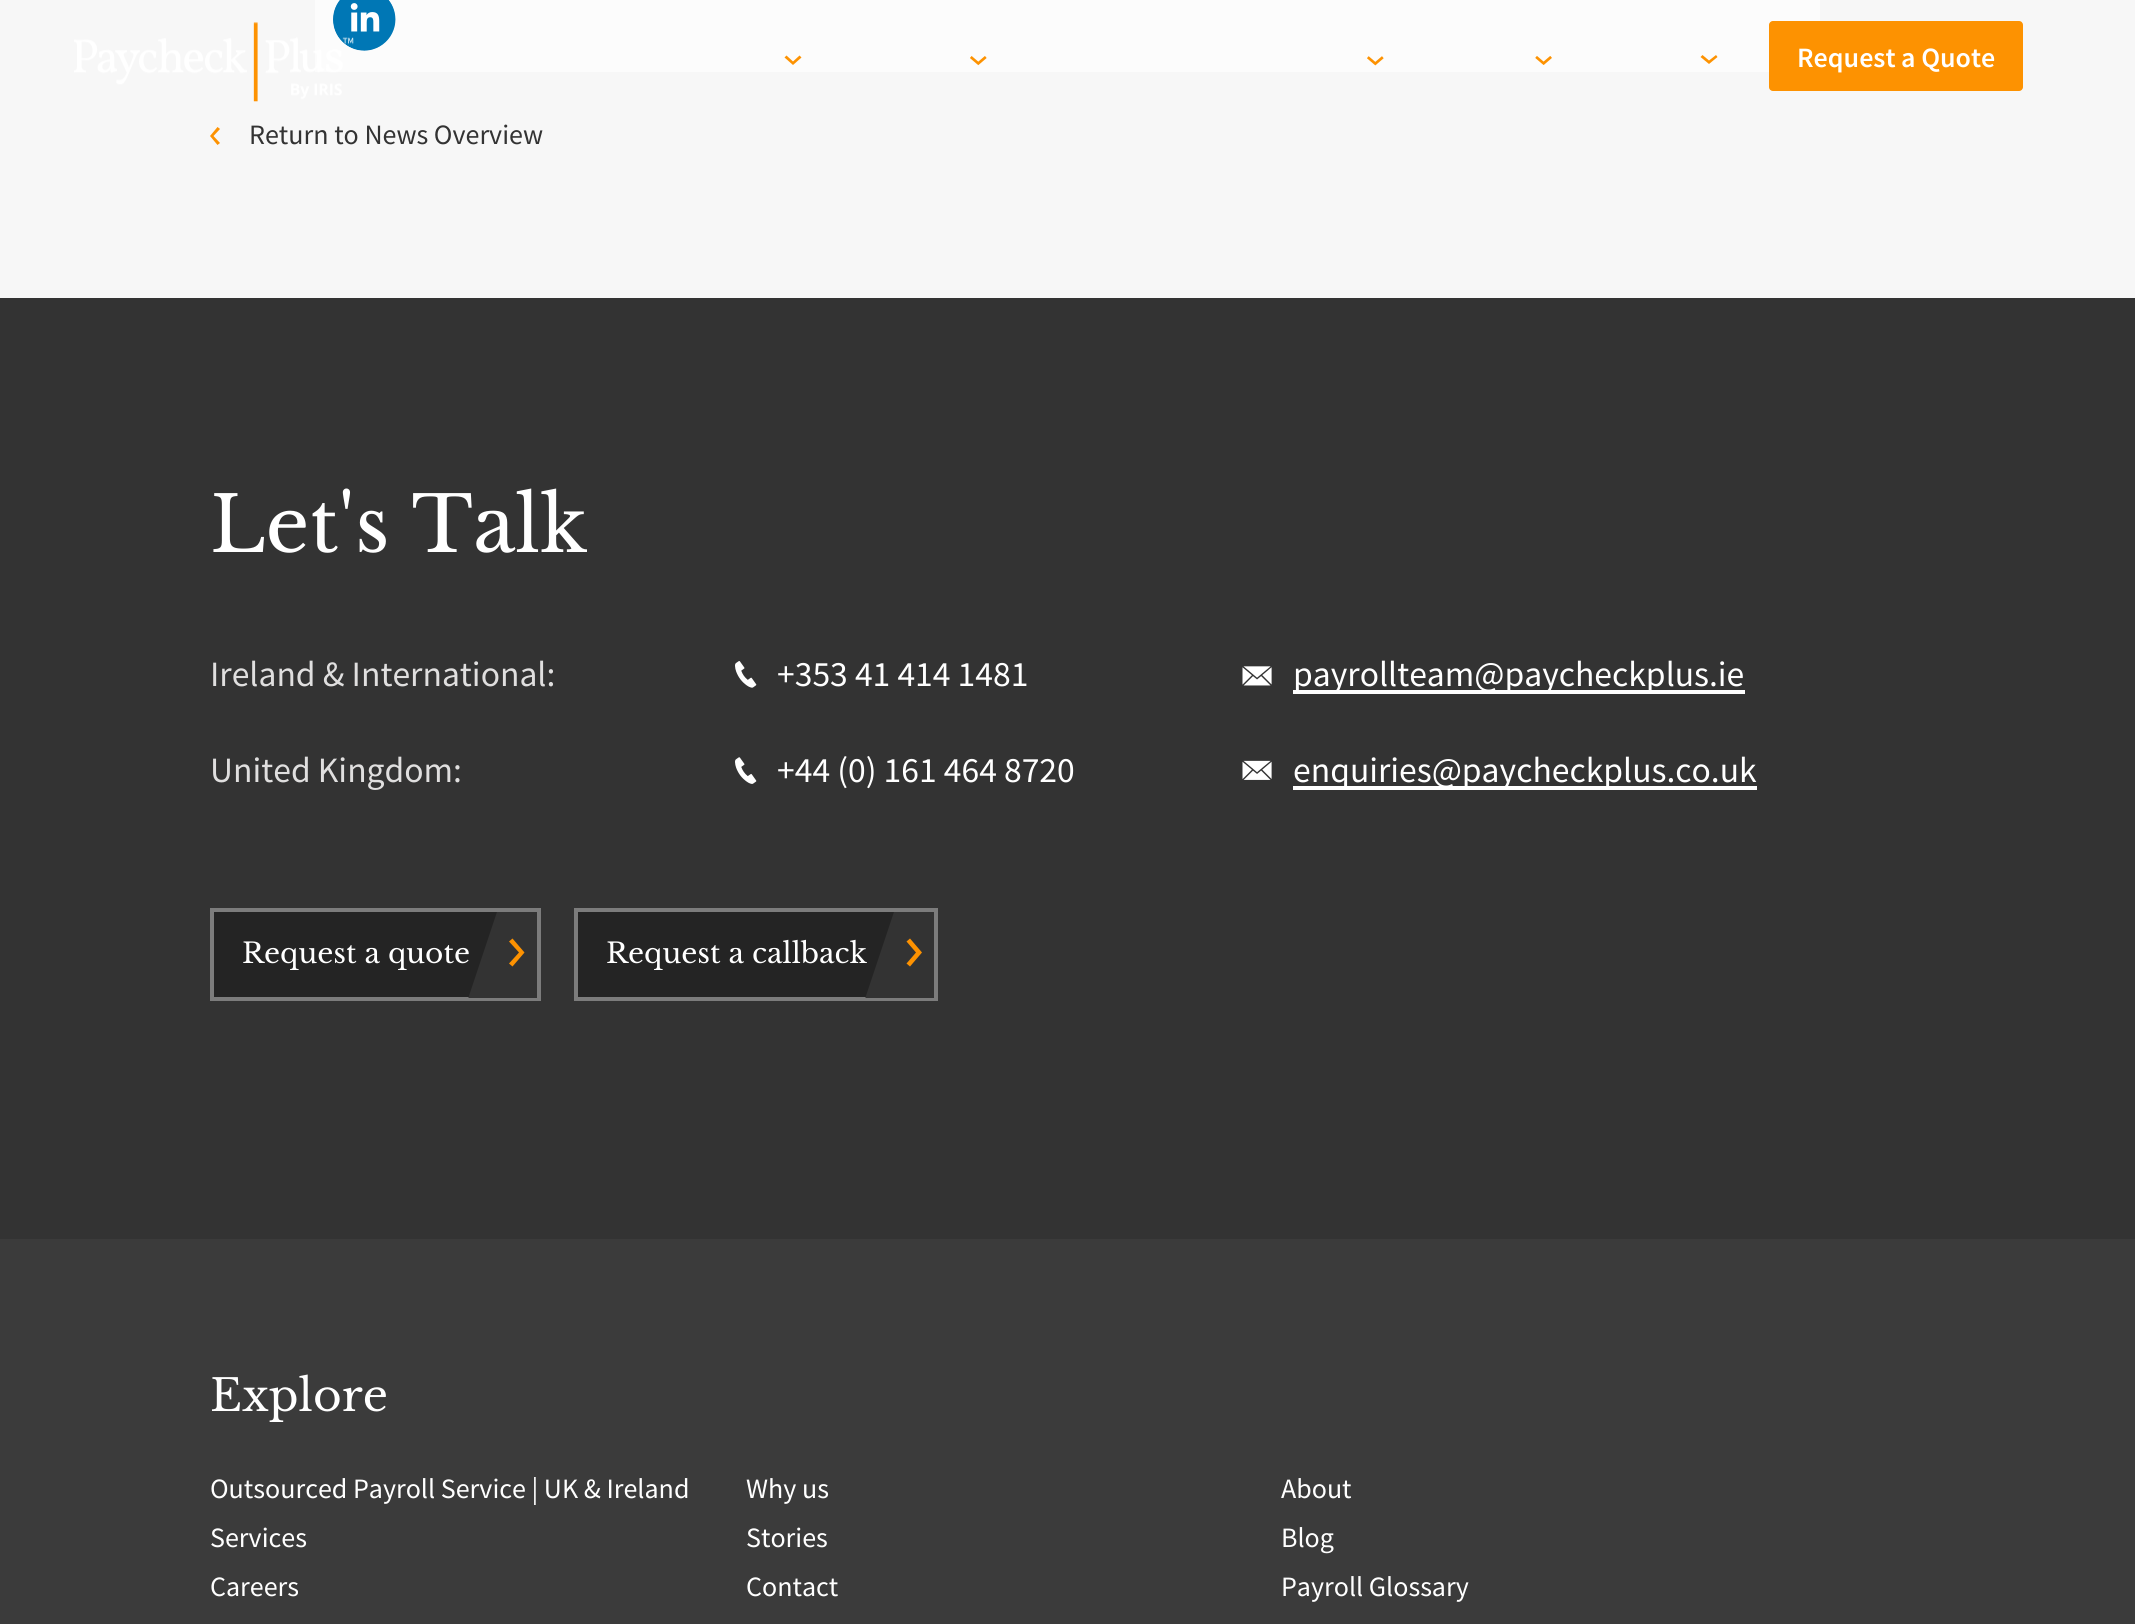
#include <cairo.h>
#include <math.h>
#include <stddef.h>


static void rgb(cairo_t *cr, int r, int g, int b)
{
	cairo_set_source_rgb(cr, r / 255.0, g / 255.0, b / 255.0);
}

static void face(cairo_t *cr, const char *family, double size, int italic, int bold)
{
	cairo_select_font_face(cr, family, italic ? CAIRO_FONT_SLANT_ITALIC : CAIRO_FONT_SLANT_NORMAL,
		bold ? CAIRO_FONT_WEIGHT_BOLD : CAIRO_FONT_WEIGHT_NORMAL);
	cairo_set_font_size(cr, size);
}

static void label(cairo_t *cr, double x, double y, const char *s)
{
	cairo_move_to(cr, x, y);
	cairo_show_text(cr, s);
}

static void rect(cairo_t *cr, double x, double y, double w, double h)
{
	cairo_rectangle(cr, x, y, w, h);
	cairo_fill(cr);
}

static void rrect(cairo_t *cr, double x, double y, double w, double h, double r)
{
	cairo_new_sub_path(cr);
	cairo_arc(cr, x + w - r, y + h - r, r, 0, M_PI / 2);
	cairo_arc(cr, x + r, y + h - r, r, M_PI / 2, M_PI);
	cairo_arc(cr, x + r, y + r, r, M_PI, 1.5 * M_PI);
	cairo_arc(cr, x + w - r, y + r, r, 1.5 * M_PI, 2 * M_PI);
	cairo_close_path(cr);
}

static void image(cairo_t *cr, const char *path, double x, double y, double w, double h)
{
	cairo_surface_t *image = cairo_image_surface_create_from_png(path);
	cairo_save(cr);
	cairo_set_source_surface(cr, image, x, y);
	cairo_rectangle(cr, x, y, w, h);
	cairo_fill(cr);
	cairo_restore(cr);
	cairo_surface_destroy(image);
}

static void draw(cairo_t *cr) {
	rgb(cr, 247, 247, 247);
	cairo_paint(cr);
	rgb(cr, 252, 252, 252);
	rect(cr, 315, 0, 1505, 72);
	image(cr, "image4.png", 333, 0, 63, 51);
	image(cr, "image0.png", 74, 22, 280, 80);
	rgb(cr, 253, 146, 1);
	cairo_new_path(cr);
	cairo_move_to(cr, 793, 65);
	cairo_line_to(cr, 784.5, 57.5);
	cairo_line_to(cr, 786.5, 55.5);
	cairo_line_to(cr, 793, 61.5);
	cairo_line_to(cr, 799.5, 55.5);
	cairo_line_to(cr, 801.5, 57.5);
	cairo_close_path(cr);
	cairo_fill(cr);
	image(cr, "image1.png", 970, 56, 17, 10);
	image(cr, "image2.png", 1367, 56, 17, 10);
	image(cr, "image3.png", 1535, 56, 17, 9);
	cairo_new_path(cr);
	cairo_move_to(cr, 1709, 64);
	cairo_line_to(cr, 1700.5, 57);
	cairo_line_to(cr, 1702.5, 55);
	cairo_line_to(cr, 1709, 60.5);
	cairo_line_to(cr, 1716, 55);
	cairo_line_to(cr, 1717.5, 57);
	cairo_close_path(cr);
	cairo_fill(cr);
	rrect(cr, 1769, 21, 254, 70, 4);
	cairo_fill(cr);
	face(cr, "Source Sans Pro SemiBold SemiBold", 28, 0, 0);
	rgb(cr, 255, 255, 255);
	label(cr, 1797, 67, "Request a Quote");
	rgb(cr, 253, 146, 1);
	cairo_new_path(cr);
	cairo_move_to(cr, 210, 136);
	cairo_line_to(cr, 217.5, 127);
	cairo_line_to(cr, 220, 129);
	cairo_line_to(cr, 213.5, 136);
	cairo_line_to(cr, 220, 143);
	cairo_line_to(cr, 217.5, 145);
	cairo_close_path(cr);
	cairo_fill(cr);
	face(cr, "Source Sans Pro", 28, 0, 0);
	rgb(cr, 51, 51, 51);
	label(cr, 249, 144, "Return to News Overview");
	rect(cr, 0, 298, 2135, 941);
	face(cr, "Libre Baskerville", 76.5, 0, 0);
	rgb(cr, 255, 255, 255);
	label(cr, 210, 552, "Let's Talk");
	face(cr, "Source Sans Pro", 35.6, 0, 0);
	rgb(cr, 224, 223, 223);
	label(cr, 210, 686, "Ireland & International:");
	image(cr, "image5.png", 735, 661, 22, 27);
	rgb(cr, 255, 255, 255);
	label(cr, 777, 686, "+353 41 414 1481");
	image(cr, "image6.png", 1242, 666, 30, 20);
	rect(cr, 1293, 690, 452, 4);
	label(cr, 1293, 686, "payrollteam@paycheckplus.ie");
	rgb(cr, 224, 223, 223);
	label(cr, 210, 782, "United Kingdom:");
	image(cr, "image7.png", 735, 757, 22, 27);
	rgb(cr, 255, 255, 255);
	label(cr, 777, 782, "+44 (0) 161 464 8720");
	image(cr, "image8.png", 1242, 760, 30, 20);
	rect(cr, 1293, 786, 464, 4);
	label(cr, 1293, 782, "enquiries@paycheckplus.co.uk");
	rgb(cr, 36, 36, 36);
	rect(cr, 214, 912, 283, 85);
	cairo_rectangle(cr, 212, 910, 327, 89);
	rgb(cr, 124, 124, 124);
	cairo_set_line_width(cr, 4);
	cairo_stroke(cr);
	cairo_save(cr);
	cairo_rectangle(cr, 214, 912, 323, 86);
	cairo_clip(cr);
	rgb(cr, 51, 51, 51);
	cairo_new_path(cr);
	cairo_move_to(cr, 537, 1017);
	cairo_line_to(cr, 462, 1017);
	cairo_line_to(cr, 497, 912);
	cairo_line_to(cr, 537, 912);
	cairo_close_path(cr);
	cairo_fill(cr);
	cairo_restore(cr);
	face(cr, "Libre Baskerville", 28, 0, 0);
	rgb(cr, 255, 255, 255);
	label(cr, 242, 963, "Request a quote");
	rgb(cr, 253, 146, 1);
	cairo_new_path(cr);
	cairo_move_to(cr, 524.5, 952.5);
	cairo_line_to(cr, 512.5, 966.5);
	cairo_line_to(cr, 509, 963.5);
	cairo_line_to(cr, 519, 952.5);
	cairo_line_to(cr, 509, 941.5);
	cairo_line_to(cr, 512.5, 938.5);
	cairo_close_path(cr);
	cairo_fill(cr);
	rgb(cr, 36, 36, 36);
	rect(cr, 578, 912, 316, 85);
	cairo_rectangle(cr, 576, 910, 360, 89);
	rgb(cr, 124, 124, 124);
	cairo_stroke(cr);
	cairo_save(cr);
	cairo_rectangle(cr, 578, 912, 357, 86);
	cairo_clip(cr);
	rgb(cr, 51, 51, 51);
	cairo_new_path(cr);
	cairo_move_to(cr, 934, 1017);
	cairo_line_to(cr, 859, 1017);
	cairo_line_to(cr, 894, 912);
	cairo_line_to(cr, 934, 912);
	cairo_close_path(cr);
	cairo_fill(cr);
	cairo_restore(cr);
	rgb(cr, 255, 255, 255);
	label(cr, 606, 963, "Request a callback");
	rgb(cr, 253, 146, 1);
	cairo_new_path(cr);
	cairo_move_to(cr, 922, 952.5);
	cairo_line_to(cr, 910, 966.5);
	cairo_line_to(cr, 906.5, 963.5);
	cairo_line_to(cr, 916, 952.5);
	cairo_line_to(cr, 906.5, 941.5);
	cairo_line_to(cr, 910, 938.5);
	cairo_close_path(cr);
	cairo_fill(cr);
	rgb(cr, 59, 59, 59);
	rect(cr, 0, 1239, 2135, 385);
	face(cr, "Libre Baskerville", 44, 0, 0);
	rgb(cr, 255, 255, 255);
	label(cr, 210, 1411, "Explore");
	face(cr, "Source Sans Pro", 28, 0, 0);
	label(cr, 210, 1498, "Outsourced Payroll Service | UK & Ireland");
	label(cr, 746, 1498, "Why us");
	label(cr, 1281, 1498, "About");
	label(cr, 210, 1547, "Services");
	label(cr, 746, 1547, "Stories");
	label(cr, 1281, 1547, "Blog");
	label(cr, 210, 1596, "Careers");
	label(cr, 746, 1596, "Contact");
	label(cr, 1281, 1596, "Payroll Glossary");
}

int main(void) {
	cairo_surface_t *surface = cairo_image_surface_create(CAIRO_FORMAT_RGB24, 2135, 1624);
	cairo_t *cr = cairo_create(surface);
	cairo_font_options_t *options = cairo_font_options_create();
	cairo_font_options_set_hint_metrics(options, CAIRO_HINT_METRICS_OFF);
	cairo_font_options_set_hint_style(options, CAIRO_HINT_STYLE_NONE);
	cairo_set_font_options(cr, options);
	cairo_set_miter_limit(cr, 4);
	draw(cr);
	cairo_surface_write_to_png(surface, "render.png");
	cairo_font_options_destroy(options);
	cairo_destroy(cr);
	cairo_surface_destroy(surface);
	return 0;
}
